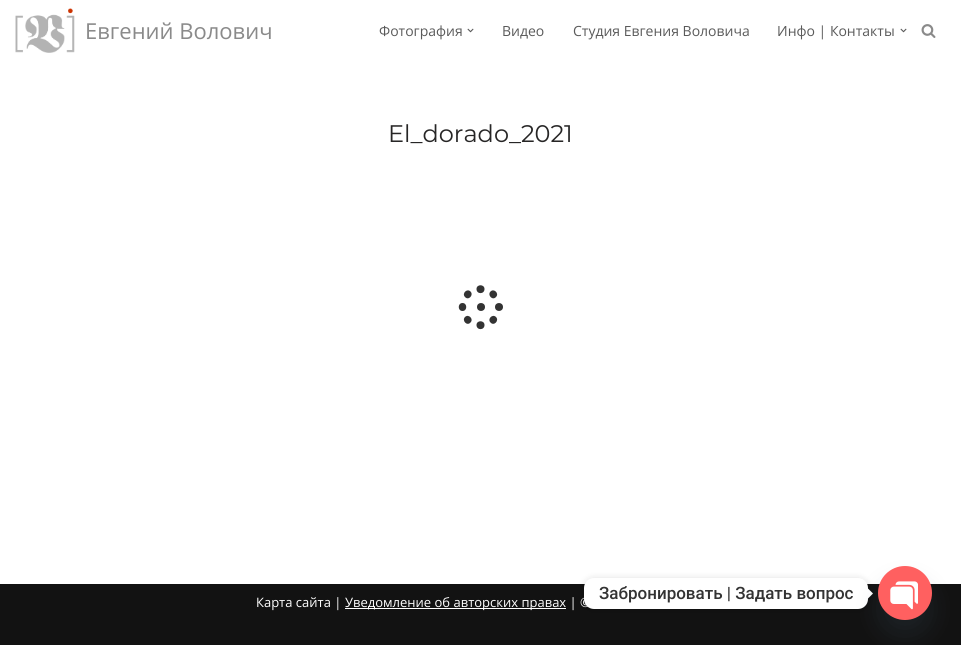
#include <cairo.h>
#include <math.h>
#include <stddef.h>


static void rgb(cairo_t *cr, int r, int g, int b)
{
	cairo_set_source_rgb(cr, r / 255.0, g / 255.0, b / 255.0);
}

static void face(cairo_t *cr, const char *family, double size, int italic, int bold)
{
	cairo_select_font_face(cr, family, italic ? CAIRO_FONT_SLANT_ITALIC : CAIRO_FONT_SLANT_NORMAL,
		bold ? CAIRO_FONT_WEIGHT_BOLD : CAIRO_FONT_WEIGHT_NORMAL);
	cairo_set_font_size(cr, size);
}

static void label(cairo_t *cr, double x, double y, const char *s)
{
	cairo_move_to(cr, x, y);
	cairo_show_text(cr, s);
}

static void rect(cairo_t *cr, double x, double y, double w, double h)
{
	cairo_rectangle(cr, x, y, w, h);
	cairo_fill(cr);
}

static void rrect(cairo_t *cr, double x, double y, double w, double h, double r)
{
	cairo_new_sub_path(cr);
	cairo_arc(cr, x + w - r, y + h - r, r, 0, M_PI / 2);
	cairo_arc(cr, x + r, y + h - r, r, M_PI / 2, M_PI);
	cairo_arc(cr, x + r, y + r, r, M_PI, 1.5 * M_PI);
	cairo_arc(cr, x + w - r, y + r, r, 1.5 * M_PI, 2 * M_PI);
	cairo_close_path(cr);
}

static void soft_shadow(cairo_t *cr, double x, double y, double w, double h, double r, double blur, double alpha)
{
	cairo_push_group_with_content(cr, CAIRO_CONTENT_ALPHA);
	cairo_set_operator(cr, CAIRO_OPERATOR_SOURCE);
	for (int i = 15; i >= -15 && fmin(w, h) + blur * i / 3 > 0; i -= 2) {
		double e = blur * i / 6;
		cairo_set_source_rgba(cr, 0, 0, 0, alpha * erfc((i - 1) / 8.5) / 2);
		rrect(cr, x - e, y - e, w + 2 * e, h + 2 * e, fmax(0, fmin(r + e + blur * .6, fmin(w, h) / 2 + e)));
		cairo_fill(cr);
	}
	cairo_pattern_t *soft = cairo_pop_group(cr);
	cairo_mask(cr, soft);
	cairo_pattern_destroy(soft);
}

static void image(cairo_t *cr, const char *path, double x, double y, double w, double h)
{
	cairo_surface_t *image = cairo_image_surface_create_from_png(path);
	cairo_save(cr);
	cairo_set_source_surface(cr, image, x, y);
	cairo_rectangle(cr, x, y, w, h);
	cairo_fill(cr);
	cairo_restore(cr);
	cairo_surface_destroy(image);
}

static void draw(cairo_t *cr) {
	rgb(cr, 255, 255, 255);
	cairo_paint(cr);
	image(cr, "image0.png", 15, 8, 60, 45);
	face(cr, "Open Sans", 22, 0, 0);
	rgb(cr, 138, 138, 138);
	label(cr, 85, 39, "Евгений Волович");
	face(cr, "Open Sans", 14, 0, 0);
	rgb(cr, 90, 90, 90);
	label(cr, 379, 36, "Фотография");
	image(cr, "image1.png", 467, 28, 7, 5);
	label(cr, 502, 36, "Видео");
	label(cr, 573, 36, "Студия Евгения Воловича");
	label(cr, 777, 36, "Инфо | Контакты");
	image(cr, "image1.png", 900, 28, 7, 5);
	image(cr, "image2.png", 921, 24, 15, 14);
	face(cr, "Montserrat", 24, 0, 0);
	rgb(cr, 39, 38, 38);
	label(cr, 388, 142, "El_dorado_2021");
	rgb(cr, 51, 51, 51);
	cairo_new_path(cr);
	cairo_arc(cr, 499, 307, 4, 0, 2 * M_PI);
	cairo_fill(cr);
	cairo_arc(cr, 481, 307, 4, 0, 2 * M_PI);
	cairo_fill(cr);
	cairo_new_path(cr);
	cairo_move_to(cr, 496, 317);
	cairo_curve_to(cr, 499.5, 320.5, 494, 326.5, 490.5, 322.5);
	cairo_curve_to(cr, 487, 319, 492.5, 313.5, 496, 317);
	cairo_close_path(cr);
	cairo_move_to(cr, 484.5, 325);
	cairo_curve_to(cr, 484.5, 330.5, 476.5, 330.5, 476.5, 325);
	cairo_curve_to(cr, 476.5, 320, 484.5, 320, 484.5, 325);
	cairo_close_path(cr);
	cairo_move_to(cr, 470.5, 322.5);
	cairo_curve_to(cr, 467, 326.5, 461.5, 320.5, 465, 317);
	cairo_curve_to(cr, 468.5, 313.5, 474, 319, 470.5, 322.5);
	cairo_close_path(cr);
	cairo_move_to(cr, 462.5, 311);
	cairo_curve_to(cr, 457.5, 311, 457.5, 303, 462.5, 303);
	cairo_curve_to(cr, 467.5, 303, 467.5, 311, 462.5, 311);
	cairo_close_path(cr);
	cairo_move_to(cr, 465, 297);
	cairo_curve_to(cr, 461.5, 293.5, 467, 288, 470.5, 291.5);
	cairo_curve_to(cr, 474, 295, 468.5, 301, 465, 297);
	cairo_close_path(cr);
	cairo_fill(cr);
	cairo_new_path(cr);
	cairo_move_to(cr, 476.5, 289);
	cairo_curve_to(cr, 476.5, 284, 484.5, 284, 484.5, 289);
	cairo_curve_to(cr, 484.5, 294.5, 476.5, 294.5, 476.5, 289);
	cairo_close_path(cr);
	cairo_move_to(cr, 490.5, 291.5);
	cairo_curve_to(cr, 494, 288, 499.5, 293.5, 496, 297);
	cairo_curve_to(cr, 492.5, 301, 487, 295, 490.5, 291.5);
	cairo_close_path(cr);
	cairo_fill(cr);
	rgb(cr, 18, 18, 18);
	rect(cr, 0, 584, 961, 61);
	face(cr, "Open Sans", 13, 0, 0);
	rgb(cr, 255, 255, 255);
	label(cr, 256, 607, "Карта сайта |");
	rect(cr, 345, 608, 221, 1);
	label(cr, 345, 607, "Уведомление об авторских правах | ©");
	rgb(cr, 0, 0, 0);
	soft_shadow(cr, 584, 579, 284, 31, 10, 4, 0.15);
	rgb(cr, 255, 255, 255);
	rrect(cr, 584, 578, 284, 31, 10);
	cairo_fill(cr);
	face(cr, "Roboto Medium", 17, 0, 0);
	rgb(cr, 51, 51, 51);
	label(cr, 599, 599, "Забронировать | Задать вопрос");
	rgb(cr, 255, 255, 255);
	cairo_new_path(cr);
	cairo_move_to(cr, 868, 598.5);
	cairo_line_to(cr, 868, 588.5);
	cairo_line_to(cr, 873, 593.5);
	cairo_close_path(cr);
	cairo_fill(cr);
	rgb(cr, 73, 104, 126);
	soft_shadow(cr, 878, 582, 54, 54, 27, 12, 0.16);
	image(cr, "image3.png", 878, 566, 54, 54);
}

int main(void) {
	cairo_surface_t *surface = cairo_image_surface_create(CAIRO_FORMAT_RGB24, 961, 645);
	cairo_t *cr = cairo_create(surface);
	cairo_font_options_t *options = cairo_font_options_create();
	cairo_font_options_set_hint_metrics(options, CAIRO_HINT_METRICS_OFF);
	cairo_font_options_set_hint_style(options, CAIRO_HINT_STYLE_NONE);
	cairo_set_font_options(cr, options);
	cairo_set_miter_limit(cr, 4);
	draw(cr);
	cairo_surface_write_to_png(surface, "render.png");
	cairo_font_options_destroy(options);
	cairo_destroy(cr);
	cairo_surface_destroy(surface);
	return 0;
}
